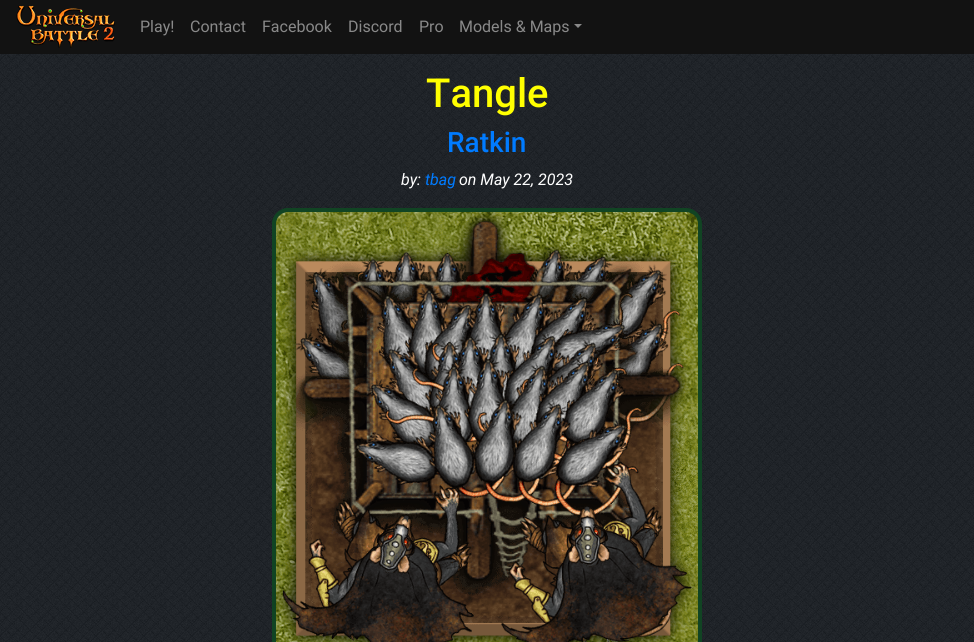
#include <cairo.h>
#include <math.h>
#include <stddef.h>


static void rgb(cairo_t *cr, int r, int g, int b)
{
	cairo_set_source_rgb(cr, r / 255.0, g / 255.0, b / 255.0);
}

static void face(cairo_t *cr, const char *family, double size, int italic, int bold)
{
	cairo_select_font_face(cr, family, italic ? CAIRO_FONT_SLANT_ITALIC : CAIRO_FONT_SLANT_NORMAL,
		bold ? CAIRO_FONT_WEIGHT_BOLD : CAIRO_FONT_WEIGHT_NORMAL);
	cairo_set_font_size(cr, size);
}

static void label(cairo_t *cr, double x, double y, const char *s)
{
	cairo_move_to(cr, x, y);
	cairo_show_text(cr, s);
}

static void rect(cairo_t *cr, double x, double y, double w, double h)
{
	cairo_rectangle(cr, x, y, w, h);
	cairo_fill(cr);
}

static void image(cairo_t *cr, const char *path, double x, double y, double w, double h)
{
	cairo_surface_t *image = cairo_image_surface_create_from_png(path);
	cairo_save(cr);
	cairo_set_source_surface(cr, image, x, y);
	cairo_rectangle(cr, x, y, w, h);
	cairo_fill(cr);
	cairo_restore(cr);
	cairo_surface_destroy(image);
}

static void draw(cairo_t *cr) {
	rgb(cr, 255, 255, 255);
	cairo_paint(cr);
	image(cr, "image0.png", 0, 54, 974, 588);
	rgb(cr, 18, 18, 18);
	rect(cr, 0, 0, 974, 54);
	image(cr, "image1.png", 16, 5, 99, 43);
	face(cr, "Roboto", 16, 0, 0);
	rgb(cr, 137, 137, 137);
	label(cr, 140, 32, "Play!");
	label(cr, 190, 32, "Contact");
	label(cr, 262, 32, "Facebook");
	label(cr, 348, 32, "Discord");
	label(cr, 419, 32, "Pro");
	label(cr, 459, 32, "Models & Maps");
	cairo_new_path(cr);
	cairo_move_to(cr, 574, 24);
	cairo_line_to(cr, 582, 24);
	cairo_line_to(cr, 578, 28);
	cairo_close_path(cr);
	cairo_fill(cr);
	face(cr, "Roboto Medium", 40, 0, 0);
	rgb(cr, 255, 255, 0);
	label(cr, 426, 107, "Tangle");
	face(cr, "Roboto Medium", 28, 0, 0);
	rgb(cr, 0, 123, 255);
	label(cr, 447, 152, "Ratkin");
	face(cr, "Roboto", 16, 1, 0);
	rgb(cr, 255, 255, 255);
	label(cr, 401, 185, "by:");
	rgb(cr, 0, 123, 255);
	label(cr, 425, 185, "tbag");
	rgb(cr, 255, 255, 255);
	label(cr, 459, 185, "on May 22, 2023");
	image(cr, "image2.png", 272, 208, 430, 434);
}

int main(void) {
	cairo_surface_t *surface = cairo_image_surface_create(CAIRO_FORMAT_RGB24, 974, 642);
	cairo_t *cr = cairo_create(surface);
	cairo_font_options_t *options = cairo_font_options_create();
	cairo_font_options_set_hint_metrics(options, CAIRO_HINT_METRICS_OFF);
	cairo_font_options_set_hint_style(options, CAIRO_HINT_STYLE_NONE);
	cairo_set_font_options(cr, options);
	cairo_set_miter_limit(cr, 4);
	draw(cr);
	cairo_surface_write_to_png(surface, "render.png");
	cairo_font_options_destroy(options);
	cairo_destroy(cr);
	cairo_surface_destroy(surface);
	return 0;
}
